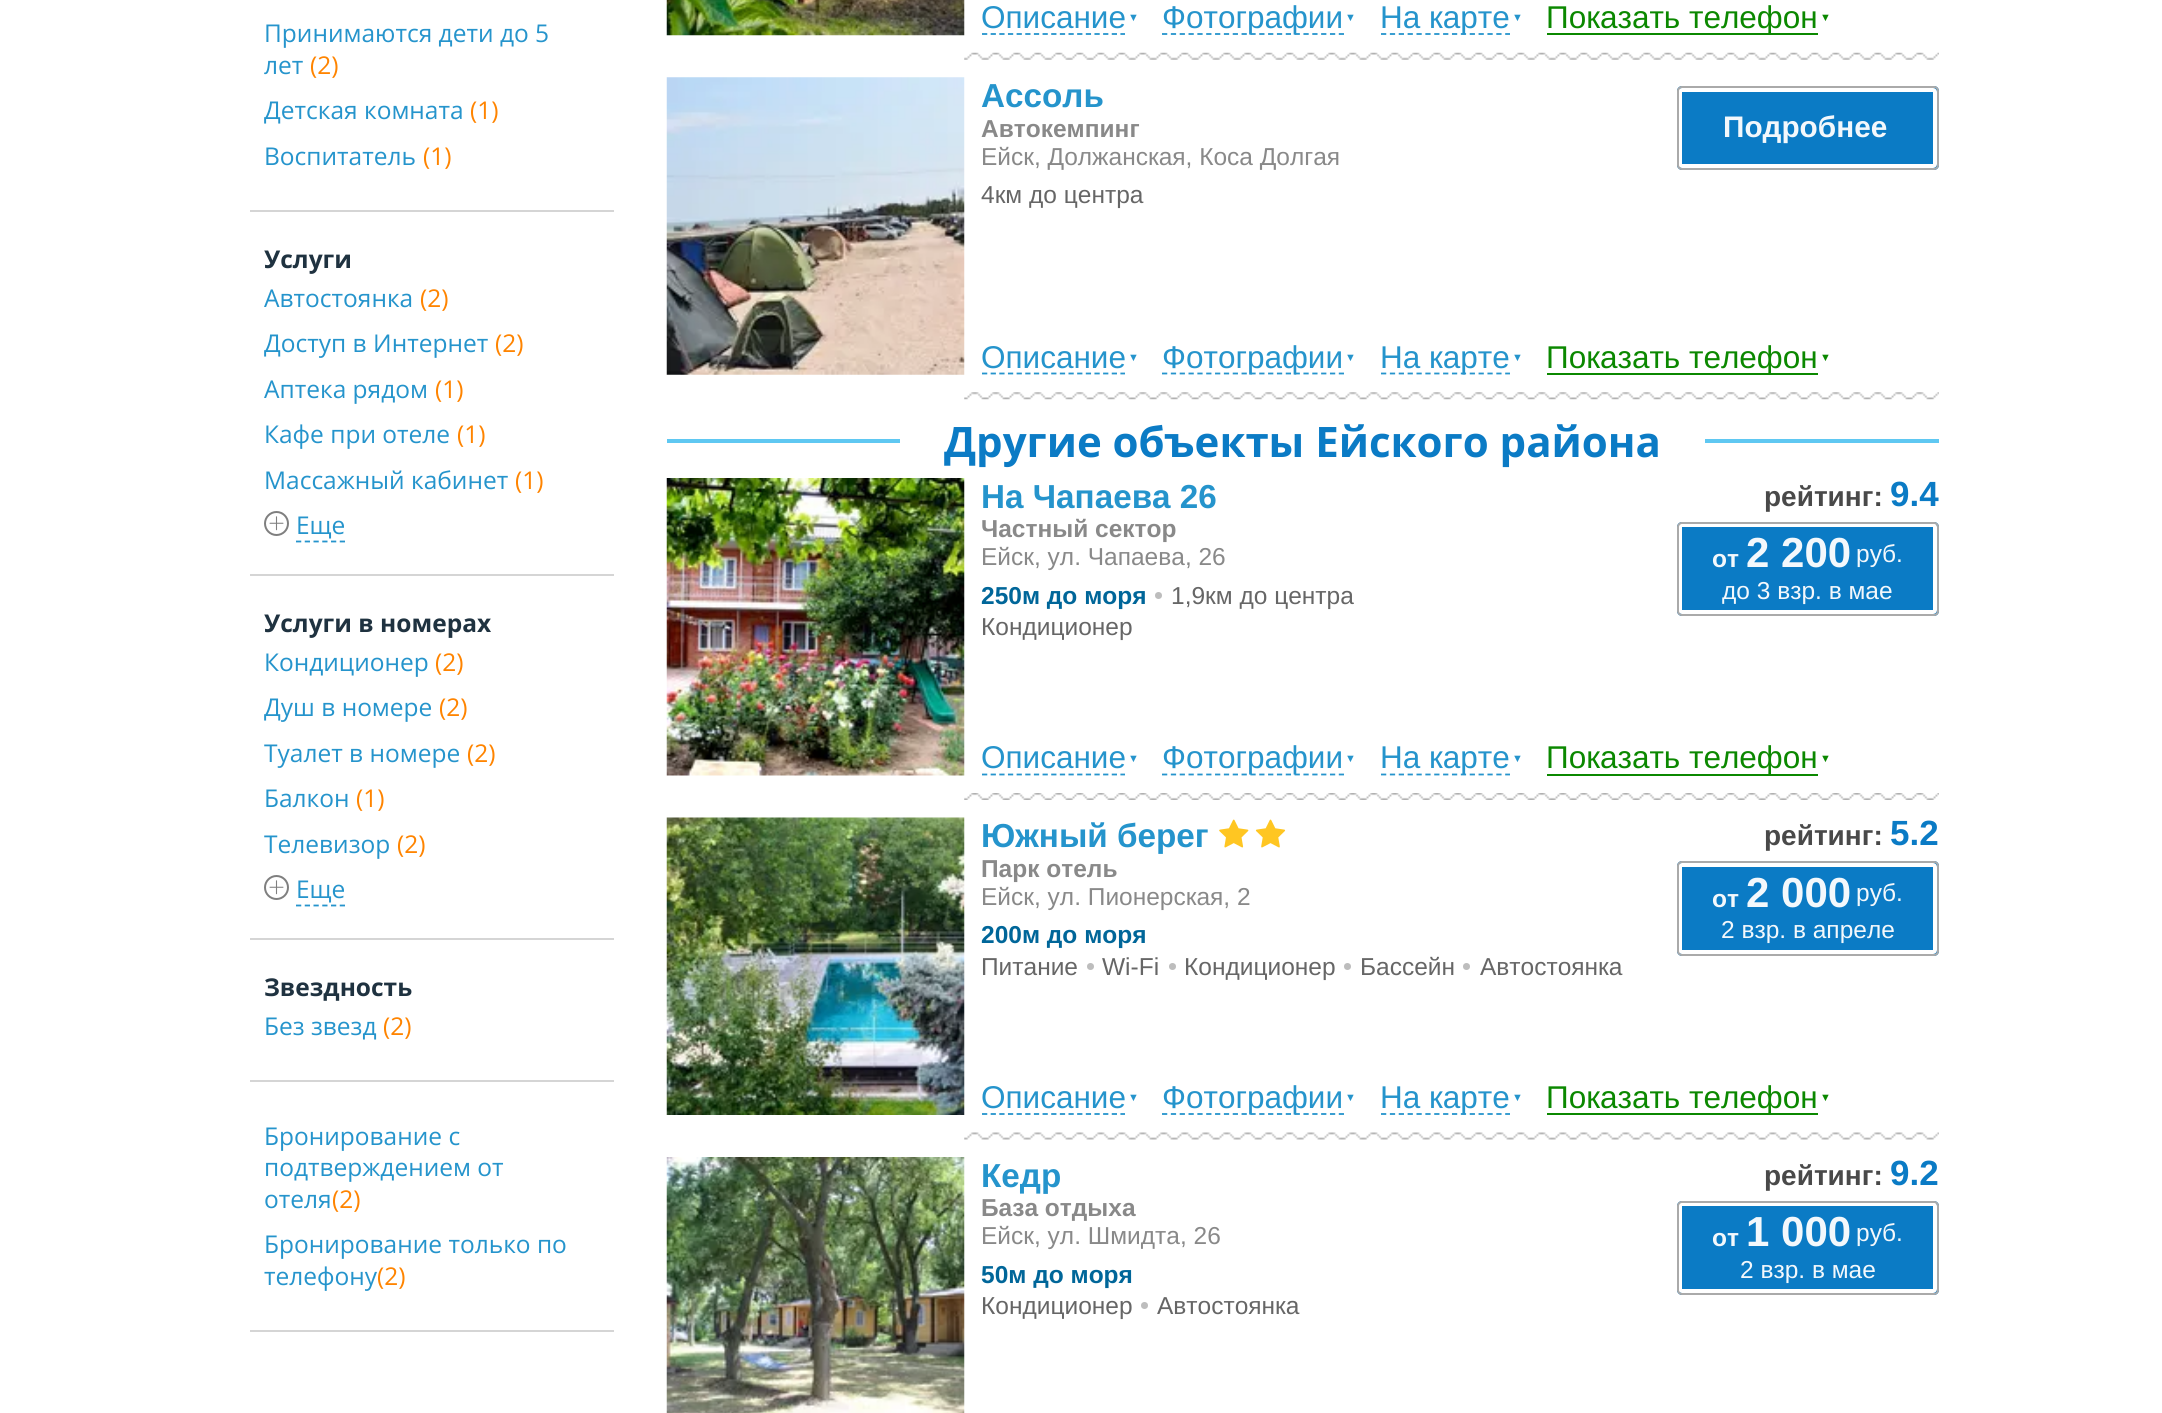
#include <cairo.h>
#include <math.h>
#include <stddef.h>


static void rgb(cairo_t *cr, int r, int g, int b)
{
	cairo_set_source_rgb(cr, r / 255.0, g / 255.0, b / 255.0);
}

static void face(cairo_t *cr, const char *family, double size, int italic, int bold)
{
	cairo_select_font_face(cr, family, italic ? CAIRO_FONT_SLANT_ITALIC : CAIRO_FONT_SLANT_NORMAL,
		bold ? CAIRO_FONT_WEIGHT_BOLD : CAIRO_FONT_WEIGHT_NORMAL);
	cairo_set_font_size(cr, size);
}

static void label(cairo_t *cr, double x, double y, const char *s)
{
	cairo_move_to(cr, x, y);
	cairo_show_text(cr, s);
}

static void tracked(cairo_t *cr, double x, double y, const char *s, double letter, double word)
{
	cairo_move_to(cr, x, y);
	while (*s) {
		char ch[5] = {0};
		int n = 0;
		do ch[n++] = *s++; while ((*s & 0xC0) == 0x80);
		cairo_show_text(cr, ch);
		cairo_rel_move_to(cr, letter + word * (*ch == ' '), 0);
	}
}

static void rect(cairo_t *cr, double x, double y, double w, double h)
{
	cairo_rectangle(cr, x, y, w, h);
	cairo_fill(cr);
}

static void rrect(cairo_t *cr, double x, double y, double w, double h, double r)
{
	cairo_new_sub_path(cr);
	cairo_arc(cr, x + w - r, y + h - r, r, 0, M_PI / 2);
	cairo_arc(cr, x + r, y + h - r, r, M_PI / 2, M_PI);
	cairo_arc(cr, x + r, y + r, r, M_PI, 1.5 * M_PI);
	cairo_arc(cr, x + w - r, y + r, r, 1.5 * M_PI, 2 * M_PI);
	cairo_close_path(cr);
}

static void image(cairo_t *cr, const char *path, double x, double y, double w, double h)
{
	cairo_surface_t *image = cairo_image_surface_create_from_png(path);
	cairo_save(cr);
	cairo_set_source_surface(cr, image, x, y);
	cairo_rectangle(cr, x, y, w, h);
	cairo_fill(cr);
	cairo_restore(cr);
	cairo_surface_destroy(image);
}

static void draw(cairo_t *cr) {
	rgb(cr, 255, 255, 255);
	cairo_paint(cr);
	rgb(cr, 213, 213, 213);
	rect(cr, 250, 210, 364, 2);
	face(cr, "Open Sans", 24.5, 0, 0);
	rgb(cr, 37, 148, 204);
	label(cr, 264, 42, "Принимаются дети до 5");
	label(cr, 264, 74, "лет");
	rgb(cr, 255, 132, 0);
	label(cr, 310, 74, "(2)");
	rgb(cr, 37, 148, 204);
	label(cr, 264, 119, "Детская комната");
	rgb(cr, 255, 132, 0);
	label(cr, 470, 119, "(1)");
	rgb(cr, 37, 148, 204);
	label(cr, 264, 165, "Воспитатель");
	rgb(cr, 255, 132, 0);
	label(cr, 423, 165, "(1)");
	rgb(cr, 213, 213, 213);
	rect(cr, 250, 574, 364, 2);
	face(cr, "Open Sans", 24.5, 0, 1);
	rgb(cr, 31, 50, 64);
	label(cr, 264, 268, "Услуги");
	face(cr, "Open Sans", 24.5, 0, 0);
	rgb(cr, 37, 148, 204);
	label(cr, 264, 307, "Автостоянка");
	rgb(cr, 255, 132, 0);
	label(cr, 420, 307, "(2)");
	rgb(cr, 37, 148, 204);
	label(cr, 264, 352, "Доступ в Интернет");
	rgb(cr, 255, 132, 0);
	label(cr, 495, 352, "(2)");
	rgb(cr, 37, 148, 204);
	label(cr, 264, 398, "Аптека рядом");
	rgb(cr, 255, 132, 0);
	label(cr, 435, 398, "(1)");
	rgb(cr, 37, 148, 204);
	label(cr, 264, 443, "Кафе при отеле");
	rgb(cr, 255, 132, 0);
	label(cr, 457, 443, "(1)");
	rgb(cr, 37, 148, 204);
	label(cr, 264, 489, "Массажный кабинет");
	rgb(cr, 255, 132, 0);
	label(cr, 515, 489, "(1)");
	cairo_new_path(cr);
	cairo_arc(cr, 276.5, 523.5, 11.5, 0, 2 * M_PI);
	rgb(cr, 127, 127, 127);
	cairo_stroke(cr);
	image(cr, "image0.png", 269, 516, 15, 15);
	cairo_new_path(cr);
	cairo_move_to(cr, 296, 541.5);
	cairo_line_to(cr, 345, 541.5);
	rgb(cr, 37, 148, 204);
	cairo_set_line_width(cr, 1.8);
	cairo_set_dash(cr, (double[]){5.25, 3.5}, 2, 0);
	cairo_stroke(cr);
	label(cr, 296, 534, "Еще");
	rgb(cr, 213, 213, 213);
	rect(cr, 250, 938, 364, 2);
	face(cr, "Open Sans", 24.5, 0, 1);
	rgb(cr, 31, 50, 64);
	label(cr, 264, 632, "Услуги в номерах");
	face(cr, "Open Sans", 24.5, 0, 0);
	rgb(cr, 37, 148, 204);
	label(cr, 264, 671, "Кондиционер");
	rgb(cr, 255, 132, 0);
	label(cr, 435, 671, "(2)");
	rgb(cr, 37, 148, 204);
	label(cr, 264, 716, "Душ в номере");
	rgb(cr, 255, 132, 0);
	label(cr, 439, 716, "(2)");
	rgb(cr, 37, 148, 204);
	label(cr, 264, 762, "Туалет в номере");
	rgb(cr, 255, 132, 0);
	label(cr, 467, 762, "(2)");
	rgb(cr, 37, 148, 204);
	label(cr, 264, 807, "Балкон");
	rgb(cr, 255, 132, 0);
	label(cr, 356, 807, "(1)");
	rgb(cr, 37, 148, 204);
	label(cr, 264, 853, "Телевизор");
	rgb(cr, 255, 132, 0);
	label(cr, 397, 853, "(2)");
	cairo_new_path(cr);
	cairo_arc(cr, 276.5, 887.5, 11.5, 0, 2 * M_PI);
	rgb(cr, 127, 127, 127);
	cairo_set_line_width(cr, 2);
	cairo_set_dash(cr, NULL, 0, 0);
	cairo_stroke(cr);
	image(cr, "image0.png", 269, 880, 15, 15);
	cairo_new_path(cr);
	cairo_move_to(cr, 296, 905.5);
	cairo_line_to(cr, 345, 905.5);
	rgb(cr, 37, 148, 204);
	cairo_set_line_width(cr, 1.8);
	cairo_set_dash(cr, (double[]){5.25, 3.5}, 2, 0);
	cairo_stroke(cr);
	label(cr, 296, 898, "Еще");
	rgb(cr, 213, 213, 213);
	rect(cr, 250, 1080, 364, 2);
	face(cr, "Open Sans", 24.5, 0, 1);
	rgb(cr, 31, 50, 64);
	label(cr, 264, 996, "Звездность");
	face(cr, "Open Sans", 24.5, 0, 0);
	rgb(cr, 37, 148, 204);
	label(cr, 264, 1035, "Без звезд");
	rgb(cr, 255, 132, 0);
	label(cr, 383, 1035, "(2)");
	rgb(cr, 213, 213, 213);
	rect(cr, 250, 1330, 364, 2);
	rgb(cr, 37, 148, 204);
	label(cr, 264, 1145, "Бронирование с");
	label(cr, 264, 1176, "подтверждением от");
	label(cr, 264, 1208, "отеля");
	rgb(cr, 255, 132, 0);
	label(cr, 332, 1208, "(2)");
	rgb(cr, 37, 148, 204);
	label(cr, 264, 1253, "Бронирование только по");
	label(cr, 264, 1285, "телефону");
	rgb(cr, 255, 132, 0);
	label(cr, 377, 1285, "(2)");
	image(cr, "image1.png", 666, 0, 299, 36);
	cairo_new_path(cr);
	cairo_move_to(cr, 982, 34);
	cairo_line_to(cr, 1125, 34);
	rgb(cr, 37, 148, 204);
	cairo_set_dash(cr, (double[]){5.25, 3.4}, 2, 0);
	cairo_stroke(cr);
	face(cr, "Liberation Sans", 31.5, 0, 0);
	label(cr, 981, 28, "Описание");
	face(cr, "Liberation Serif", 11, 0, 0);
	tracked(cr, 1128, 21, "▼", 11, 0);
	cairo_new_path(cr);
	cairo_move_to(cr, 1162, 34);
	cairo_line_to(cr, 1344, 34);
	cairo_set_dash(cr, (double[]){5.25, 3.59}, 2, 0);
	cairo_stroke(cr);
	face(cr, "Liberation Sans", 31.5, 0, 0);
	label(cr, 1162, 28, "Фотографии");
	face(cr, "Liberation Serif", 11, 0, 0);
	tracked(cr, 1345, 21, "▼", 11, 0);
	cairo_new_path(cr);
	cairo_move_to(cr, 1381, 34);
	cairo_line_to(cr, 1510, 34);
	cairo_set_dash(cr, (double[]){5.25, 3.62}, 2, 0);
	cairo_stroke(cr);
	face(cr, "Liberation Sans", 31.5, 0, 0);
	label(cr, 1380, 28, "На карте");
	face(cr, "Liberation Serif", 11, 0, 0);
	tracked(cr, 1512, 21, "▼", 11, 0);
	rgb(cr, 11, 136, 0);
	rect(cr, 1547, 33, 271, 2);
	face(cr, "Liberation Sans", 31.5, 0, 0);
	label(cr, 1546, 28, "Показать телефон");
	face(cr, "Liberation Serif", 11, 0, 0);
	tracked(cr, 1820, 21, "▼", 11, 0);
	image(cr, "image2.png", 964, 52, 975, 8);
	image(cr, "image3.png", 666, 77, 299, 298);
	face(cr, "Liberation Sans", 33.25, 0, 1);
	rgb(cr, 37, 148, 204);
	label(cr, 981, 107, "Ассоль");
	face(cr, "Liberation Sans", 24.5, 0, 1);
	rgb(cr, 137, 137, 137);
	label(cr, 981, 137, "Автокемпинг");
	face(cr, "Liberation Sans", 24.5, 0, 0);
	label(cr, 981, 165, "Ейск, Должанская, Коса Долгая");
	rgb(cr, 102, 102, 102);
	label(cr, 981, 203, "4км до центра");
	rgb(cr, 11, 123, 197);
	rrect(cr, 1677, 86, 262, 84, 5);
	cairo_fill(cr);
	rrect(cr, 1680, 90, 255, 76, 2);
	rgb(cr, 255, 255, 255);
	cairo_set_line_width(cr, 4);
	cairo_set_dash(cr, NULL, 0, 0);
	cairo_stroke(cr);
	rrect(cr, 1678, 87, 260, 82, 4);
	rgb(cr, 170, 170, 170);
	cairo_set_line_width(cr, 2);
	cairo_stroke(cr);
	face(cr, "Liberation Sans", 29.75, 0, 1);
	rgb(cr, 243, 248, 252);
	label(cr, 1723, 137, "Подробнее");
	cairo_new_path(cr);
	cairo_move_to(cr, 982, 373.5);
	cairo_line_to(cr, 1125, 373.5);
	rgb(cr, 37, 148, 204);
	cairo_set_line_width(cr, 1.8);
	cairo_set_dash(cr, (double[]){5.25, 3.4}, 2, 0);
	cairo_stroke(cr);
	face(cr, "Liberation Sans", 31.5, 0, 0);
	label(cr, 981, 368, "Описание");
	face(cr, "Liberation Serif", 11, 0, 0);
	tracked(cr, 1128, 361, "▼", 11, 0);
	cairo_new_path(cr);
	cairo_move_to(cr, 1162, 373.5);
	cairo_line_to(cr, 1344, 373.5);
	cairo_set_dash(cr, (double[]){5.25, 3.59}, 2, 0);
	cairo_stroke(cr);
	face(cr, "Liberation Sans", 31.5, 0, 0);
	label(cr, 1162, 368, "Фотографии");
	face(cr, "Liberation Serif", 11, 0, 0);
	tracked(cr, 1345, 361, "▼", 11, 0);
	cairo_new_path(cr);
	cairo_move_to(cr, 1381, 373.5);
	cairo_line_to(cr, 1510, 373.5);
	cairo_set_dash(cr, (double[]){5.25, 3.62}, 2, 0);
	cairo_stroke(cr);
	face(cr, "Liberation Sans", 31.5, 0, 0);
	label(cr, 1380, 368, "На карте");
	face(cr, "Liberation Serif", 11, 0, 0);
	tracked(cr, 1512, 361, "▼", 11, 0);
	rgb(cr, 11, 136, 0);
	rect(cr, 1547, 373, 271, 2);
	face(cr, "Liberation Sans", 31.5, 0, 0);
	label(cr, 1546, 368, "Показать телефон");
	face(cr, "Liberation Serif", 11, 0, 0);
	tracked(cr, 1820, 361, "▼", 11, 0);
	image(cr, "image4.png", 964, 392, 975, 8);
	rgb(cr, 95, 200, 242);
	rect(cr, 667, 439, 233, 4);
	face(cr, "Open Sans", 42, 0, 1);
	rgb(cr, 11, 123, 197);
	label(cr, 944, 457, "Другие объекты Ейского района");
	rgb(cr, 95, 200, 242);
	rect(cr, 1705, 439, 234, 4);
	image(cr, "image5.png", 666, 478, 299, 298);
	face(cr, "Liberation Sans", 33.25, 0, 1);
	rgb(cr, 37, 148, 204);
	label(cr, 981, 508, "На Чапаева 26");
	face(cr, "Liberation Sans", 24.5, 0, 1);
	rgb(cr, 137, 137, 137);
	label(cr, 981, 537, "Частный сектор");
	face(cr, "Liberation Sans", 24.5, 0, 0);
	label(cr, 981, 565, "Ейск, ул. Чапаева, 26");
	face(cr, "Liberation Sans", 24.5, 0, 1);
	rgb(cr, 0, 102, 153);
	label(cr, 981, 604, "250м до моря");
	rgb(cr, 189, 189, 189);
	cairo_new_path(cr);
	cairo_arc(cr, 1158.5, 595.5, 3.5, 0, 2 * M_PI);
	cairo_fill(cr);
	face(cr, "Liberation Sans", 24.5, 0, 0);
	rgb(cr, 102, 102, 102);
	label(cr, 1171, 604, "1,9км до центра");
	label(cr, 981, 635, "Кондиционер");
	face(cr, "Liberation Sans", 28, 0, 1);
	rgb(cr, 73, 73, 73);
	label(cr, 1764, 506, "рейтинг:");
	face(cr, "Liberation Sans", 35, 0, 1);
	rgb(cr, 11, 123, 197);
	label(cr, 1890, 506, "9.4");
	rrect(cr, 1677, 522, 262, 94, 5);
	cairo_fill(cr);
	rrect(cr, 1680, 525, 255, 87, 2);
	rgb(cr, 255, 255, 255);
	cairo_set_line_width(cr, 4);
	cairo_set_dash(cr, NULL, 0, 0);
	cairo_stroke(cr);
	rrect(cr, 1678, 523, 260, 92, 4);
	rgb(cr, 170, 170, 170);
	cairo_set_line_width(cr, 2);
	cairo_stroke(cr);
	face(cr, "Liberation Sans", 24.5, 0, 1);
	rgb(cr, 243, 248, 252);
	label(cr, 1712, 567, "от");
	face(cr, "Liberation Sans", 42, 0, 1);
	label(cr, 1746, 567, "2 200");
	face(cr, "Liberation Sans", 24.5, 0, 0);
	label(cr, 1856, 562, "руб.");
	label(cr, 1722, 599, "до 3 взр. в мае");
	cairo_new_path(cr);
	cairo_move_to(cr, 982, 774.5);
	cairo_line_to(cr, 1125, 774.5);
	rgb(cr, 37, 148, 204);
	cairo_set_line_width(cr, 1.8);
	cairo_set_dash(cr, (double[]){5.25, 3.4}, 2, 0);
	cairo_stroke(cr);
	face(cr, "Liberation Sans", 31.5, 0, 0);
	label(cr, 981, 768, "Описание");
	face(cr, "Liberation Serif", 11, 0, 0);
	tracked(cr, 1128, 762, "▼", 11, 0);
	cairo_new_path(cr);
	cairo_move_to(cr, 1162, 774.5);
	cairo_line_to(cr, 1344, 774.5);
	cairo_set_dash(cr, (double[]){5.25, 3.59}, 2, 0);
	cairo_stroke(cr);
	face(cr, "Liberation Sans", 31.5, 0, 0);
	label(cr, 1162, 768, "Фотографии");
	face(cr, "Liberation Serif", 11, 0, 0);
	tracked(cr, 1345, 762, "▼", 11, 0);
	cairo_new_path(cr);
	cairo_move_to(cr, 1381, 774.5);
	cairo_line_to(cr, 1510, 774.5);
	cairo_set_dash(cr, (double[]){5.25, 3.62}, 2, 0);
	cairo_stroke(cr);
	face(cr, "Liberation Sans", 31.5, 0, 0);
	label(cr, 1380, 768, "На карте");
	face(cr, "Liberation Serif", 11, 0, 0);
	tracked(cr, 1512, 762, "▼", 11, 0);
	rgb(cr, 11, 136, 0);
	rect(cr, 1547, 774, 271, 2);
	face(cr, "Liberation Sans", 31.5, 0, 0);
	label(cr, 1546, 768, "Показать телефон");
	face(cr, "Liberation Serif", 11, 0, 0);
	tracked(cr, 1820, 762, "▼", 11, 0);
	image(cr, "image6.png", 964, 793, 975, 7);
	image(cr, "image7.png", 666, 817, 299, 298);
	face(cr, "Liberation Sans", 33.25, 0, 1);
	rgb(cr, 37, 148, 204);
	label(cr, 981, 847, "Южный берег");
	image(cr, "image8.png", 1219, 819, 30, 29);
	image(cr, "image9.png", 1255, 819, 31, 29);
	face(cr, "Liberation Sans", 24.5, 0, 1);
	rgb(cr, 137, 137, 137);
	label(cr, 981, 877, "Парк отель");
	face(cr, "Liberation Sans", 24.5, 0, 0);
	label(cr, 981, 905, "Ейск, ул. Пионерская, 2");
	face(cr, "Liberation Sans", 24.5, 0, 1);
	rgb(cr, 0, 102, 153);
	label(cr, 981, 943, "200м до моря");
	face(cr, "Liberation Sans", 24.5, 0, 0);
	rgb(cr, 102, 102, 102);
	label(cr, 981, 975, "Питание");
	rgb(cr, 189, 189, 189);
	cairo_new_path(cr);
	cairo_arc(cr, 1090.5, 966.5, 3.5, 0, 2 * M_PI);
	cairo_fill(cr);
	rgb(cr, 102, 102, 102);
	label(cr, 1102, 975, "Wi-Fi");
	rgb(cr, 189, 189, 189);
	cairo_new_path(cr);
	cairo_arc(cr, 1172.5, 966.5, 3.5, 0, 2 * M_PI);
	cairo_fill(cr);
	rgb(cr, 102, 102, 102);
	label(cr, 1184, 975, "Кондиционер");
	rgb(cr, 189, 189, 189);
	cairo_new_path(cr);
	cairo_arc(cr, 1347.5, 966.5, 3.5, 0, 2 * M_PI);
	cairo_fill(cr);
	rgb(cr, 102, 102, 102);
	label(cr, 1360, 975, "Бассейн");
	rgb(cr, 189, 189, 189);
	cairo_new_path(cr);
	cairo_arc(cr, 1466.5, 966.5, 3.5, 0, 2 * M_PI);
	cairo_fill(cr);
	rgb(cr, 102, 102, 102);
	label(cr, 1480, 975, "Автостоянка");
	face(cr, "Liberation Sans", 28, 0, 1);
	rgb(cr, 73, 73, 73);
	label(cr, 1764, 845, "рейтинг:");
	face(cr, "Liberation Sans", 35, 0, 1);
	rgb(cr, 11, 123, 197);
	label(cr, 1890, 845, "5.2");
	rrect(cr, 1677, 861, 262, 95, 5);
	cairo_fill(cr);
	rrect(cr, 1680, 865, 255, 87, 2);
	rgb(cr, 255, 255, 255);
	cairo_set_line_width(cr, 4);
	cairo_set_dash(cr, NULL, 0, 0);
	cairo_stroke(cr);
	rrect(cr, 1678, 862, 260, 93, 4);
	rgb(cr, 170, 170, 170);
	cairo_set_line_width(cr, 2);
	cairo_stroke(cr);
	face(cr, "Liberation Sans", 24.5, 0, 1);
	rgb(cr, 243, 248, 252);
	label(cr, 1712, 907, "от");
	face(cr, "Liberation Sans", 42, 0, 1);
	label(cr, 1746, 907, "2 000");
	face(cr, "Liberation Sans", 24.5, 0, 0);
	label(cr, 1856, 901, "руб.");
	label(cr, 1721, 938, "2 взр. в апреле");
	cairo_new_path(cr);
	cairo_move_to(cr, 982, 1114);
	cairo_line_to(cr, 1125, 1114);
	rgb(cr, 37, 148, 204);
	cairo_set_line_width(cr, 1.8);
	cairo_set_dash(cr, (double[]){5.25, 3.4}, 2, 0);
	cairo_stroke(cr);
	face(cr, "Liberation Sans", 31.5, 0, 0);
	label(cr, 981, 1108, "Описание");
	face(cr, "Liberation Serif", 11, 0, 0);
	tracked(cr, 1128, 1101, "▼", 11, 0);
	cairo_new_path(cr);
	cairo_move_to(cr, 1162, 1114);
	cairo_line_to(cr, 1344, 1114);
	cairo_set_dash(cr, (double[]){5.25, 3.59}, 2, 0);
	cairo_stroke(cr);
	face(cr, "Liberation Sans", 31.5, 0, 0);
	label(cr, 1162, 1108, "Фотографии");
	face(cr, "Liberation Serif", 11, 0, 0);
	tracked(cr, 1345, 1101, "▼", 11, 0);
	cairo_new_path(cr);
	cairo_move_to(cr, 1381, 1114);
	cairo_line_to(cr, 1510, 1114);
	cairo_set_dash(cr, (double[]){5.25, 3.62}, 2, 0);
	cairo_stroke(cr);
	face(cr, "Liberation Sans", 31.5, 0, 0);
	label(cr, 1380, 1108, "На карте");
	face(cr, "Liberation Serif", 11, 0, 0);
	tracked(cr, 1512, 1101, "▼", 11, 0);
	rgb(cr, 11, 136, 0);
	rect(cr, 1547, 1113, 271, 2);
	face(cr, "Liberation Sans", 31.5, 0, 0);
	label(cr, 1546, 1108, "Показать телефон");
	face(cr, "Liberation Serif", 11, 0, 0);
	tracked(cr, 1820, 1101, "▼", 11, 0);
	image(cr, "image10.png", 964, 1132, 975, 8);
	image(cr, "image11.png", 666, 1157, 299, 256);
	face(cr, "Liberation Sans", 33.25, 0, 1);
	rgb(cr, 37, 148, 204);
	label(cr, 981, 1187, "Кедр");
	face(cr, "Liberation Sans", 24.5, 0, 1);
	rgb(cr, 137, 137, 137);
	label(cr, 981, 1216, "База отдыха");
	face(cr, "Liberation Sans", 24.5, 0, 0);
	label(cr, 981, 1244, "Ейск, ул. Шмидта, 26");
	face(cr, "Liberation Sans", 24.5, 0, 1);
	rgb(cr, 0, 102, 153);
	label(cr, 981, 1283, "50м до моря");
	face(cr, "Liberation Sans", 24.5, 0, 0);
	rgb(cr, 102, 102, 102);
	label(cr, 981, 1314, "Кондиционер");
	rgb(cr, 189, 189, 189);
	cairo_new_path(cr);
	cairo_arc(cr, 1144.5, 1305.5, 3.5, 0, 2 * M_PI);
	cairo_fill(cr);
	rgb(cr, 102, 102, 102);
	label(cr, 1157, 1314, "Автостоянка");
	face(cr, "Liberation Sans", 28, 0, 1);
	rgb(cr, 73, 73, 73);
	label(cr, 1764, 1185, "рейтинг:");
	face(cr, "Liberation Sans", 35, 0, 1);
	rgb(cr, 11, 123, 197);
	label(cr, 1890, 1185, "9.2");
	rrect(cr, 1677, 1201, 262, 94, 5);
	cairo_fill(cr);
	rrect(cr, 1680, 1204, 255, 87, 2);
	rgb(cr, 255, 255, 255);
	cairo_set_line_width(cr, 4);
	cairo_set_dash(cr, NULL, 0, 0);
	cairo_stroke(cr);
	rrect(cr, 1678, 1202, 260, 92, 4);
	rgb(cr, 170, 170, 170);
	cairo_set_line_width(cr, 2);
	cairo_stroke(cr);
	face(cr, "Liberation Sans", 24.5, 0, 1);
	rgb(cr, 243, 248, 252);
	label(cr, 1712, 1246, "от");
	face(cr, "Liberation Sans", 42, 0, 1);
	label(cr, 1746, 1246, "1 000");
	face(cr, "Liberation Sans", 24.5, 0, 0);
	label(cr, 1856, 1241, "руб.");
	label(cr, 1740, 1278, "2 взр. в мае");
}

int main(void) {
	cairo_surface_t *surface = cairo_image_surface_create(CAIRO_FORMAT_RGB24, 2162, 1413);
	cairo_t *cr = cairo_create(surface);
	cairo_font_options_t *options = cairo_font_options_create();
	cairo_font_options_set_hint_metrics(options, CAIRO_HINT_METRICS_OFF);
	cairo_font_options_set_hint_style(options, CAIRO_HINT_STYLE_NONE);
	cairo_set_font_options(cr, options);
	cairo_set_miter_limit(cr, 4);
	draw(cr);
	cairo_surface_write_to_png(surface, "render.png");
	cairo_font_options_destroy(options);
	cairo_destroy(cr);
	cairo_surface_destroy(surface);
	return 0;
}
